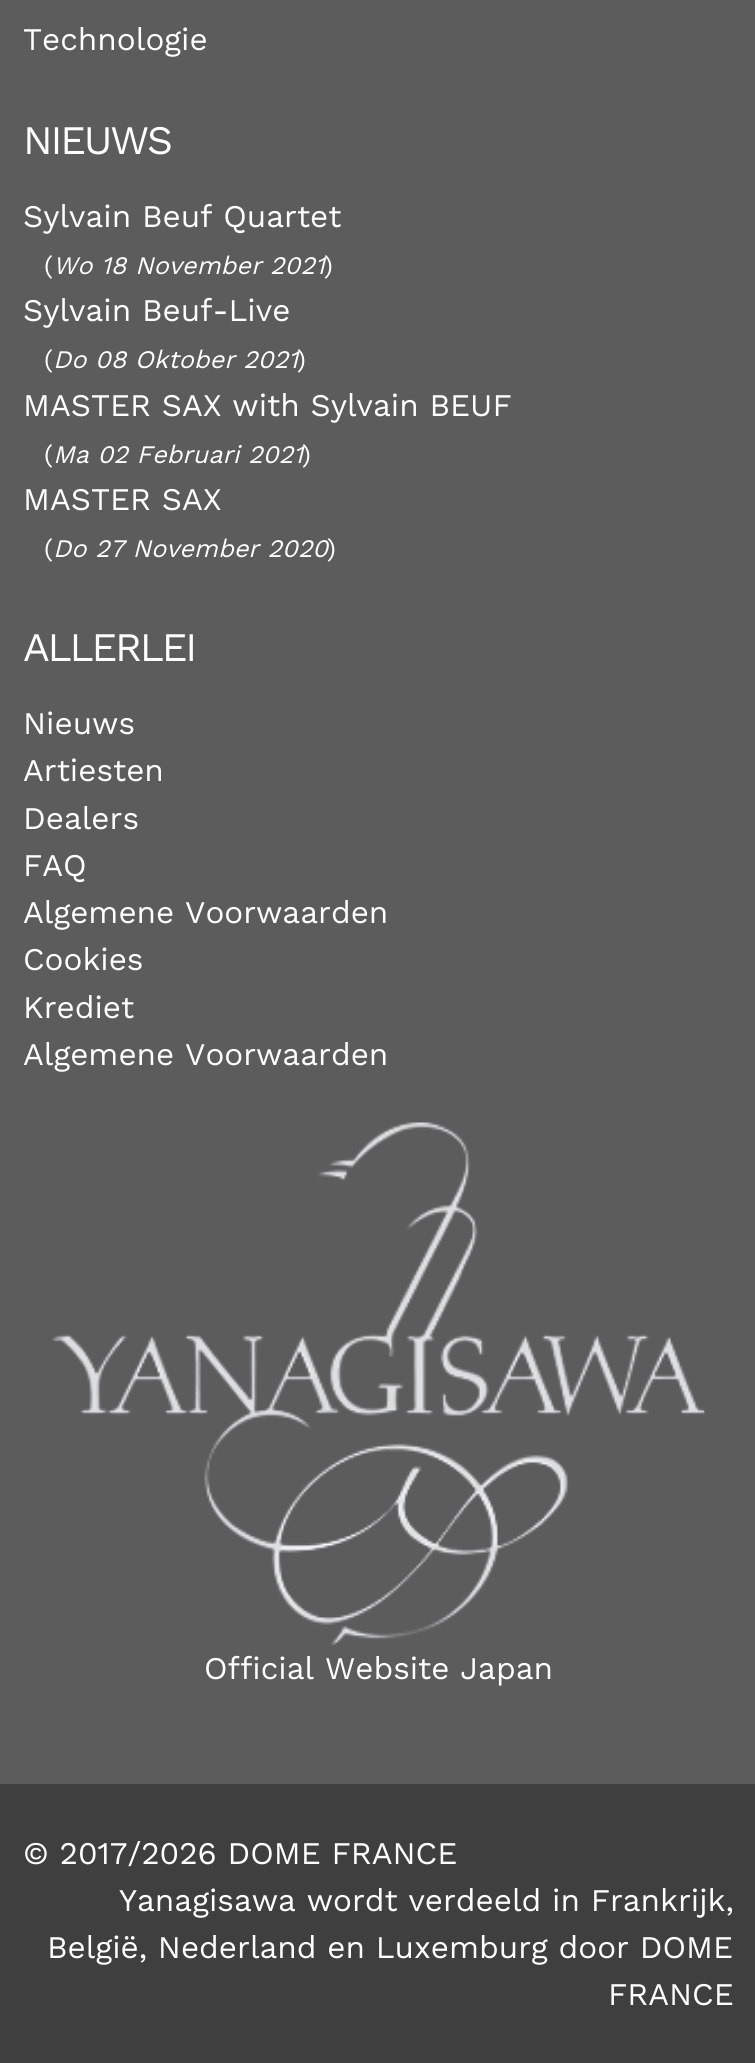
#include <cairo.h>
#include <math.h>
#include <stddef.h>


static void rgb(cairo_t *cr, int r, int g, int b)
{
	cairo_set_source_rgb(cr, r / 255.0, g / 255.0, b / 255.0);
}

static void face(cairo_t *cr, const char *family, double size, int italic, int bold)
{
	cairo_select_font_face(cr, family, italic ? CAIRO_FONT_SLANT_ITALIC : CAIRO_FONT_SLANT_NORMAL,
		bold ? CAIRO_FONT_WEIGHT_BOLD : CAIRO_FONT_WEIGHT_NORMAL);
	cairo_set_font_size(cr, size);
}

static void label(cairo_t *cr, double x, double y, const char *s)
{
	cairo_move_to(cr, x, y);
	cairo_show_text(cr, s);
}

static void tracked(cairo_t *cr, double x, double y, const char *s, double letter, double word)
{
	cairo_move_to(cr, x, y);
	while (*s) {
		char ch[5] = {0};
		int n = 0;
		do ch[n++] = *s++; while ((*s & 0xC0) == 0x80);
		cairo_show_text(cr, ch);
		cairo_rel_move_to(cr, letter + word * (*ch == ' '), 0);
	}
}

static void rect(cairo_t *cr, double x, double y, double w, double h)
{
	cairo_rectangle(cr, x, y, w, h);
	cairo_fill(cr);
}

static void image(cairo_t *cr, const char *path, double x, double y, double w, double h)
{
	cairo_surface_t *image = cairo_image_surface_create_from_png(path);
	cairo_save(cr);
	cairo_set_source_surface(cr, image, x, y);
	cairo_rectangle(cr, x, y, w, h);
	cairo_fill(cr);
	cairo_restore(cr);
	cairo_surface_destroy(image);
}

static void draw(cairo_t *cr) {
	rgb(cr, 63, 63, 64);
	cairo_paint(cr);
	rgb(cr, 92, 92, 93);
	rect(cr, 0, 0, 755, 1784);
	face(cr, "Work Sans", 31.5, 0, 0);
	rgb(cr, 255, 255, 255);
	label(cr, 23, 50, "Technologie");
	face(cr, "Work Sans", 40.5, 0, 0);
	tracked(cr, 23, 154, "NIEUWS", -2.25, 0);
	face(cr, "Work Sans", 31.5, 0, 0);
	label(cr, 23, 227, "Sylvain Beuf Quartet");
	face(cr, "Work Sans", 25.25, 0, 0);
	label(cr, 44, 274, "(");
	face(cr, "Work Sans", 25.25, 1, 0);
	label(cr, 53, 274, "Wo 18 November 2021");
	face(cr, "Work Sans", 25.25, 0, 0);
	label(cr, 324, 274, ")");
	face(cr, "Work Sans", 31.5, 0, 0);
	label(cr, 23, 321, "Sylvain Beuf-Live");
	face(cr, "Work Sans", 25.25, 0, 0);
	label(cr, 44, 368, "(");
	face(cr, "Work Sans", 25.25, 1, 0);
	label(cr, 53, 368, "Do 08 Oktober 2021");
	face(cr, "Work Sans", 25.25, 0, 0);
	label(cr, 297, 368, ")");
	face(cr, "Work Sans", 31.5, 0, 0);
	label(cr, 23, 416, "MASTER SAX with Sylvain BEUF");
	face(cr, "Work Sans", 25.25, 0, 0);
	label(cr, 44, 463, "(");
	face(cr, "Work Sans", 25.25, 1, 0);
	label(cr, 53, 463, "Ma 02 Februari 2021");
	face(cr, "Work Sans", 25.25, 0, 0);
	label(cr, 302, 463, ")");
	face(cr, "Work Sans", 31.5, 0, 0);
	label(cr, 23, 510, "MASTER SAX");
	face(cr, "Work Sans", 25.25, 0, 0);
	label(cr, 44, 557, "(");
	face(cr, "Work Sans", 25.25, 1, 0);
	label(cr, 53, 557, "Do 27 November 2020");
	face(cr, "Work Sans", 25.25, 0, 0);
	label(cr, 327, 557, ")");
	face(cr, "Work Sans", 40.5, 0, 0);
	tracked(cr, 23, 661, "ALLERLEI", -2.25, 0);
	face(cr, "Work Sans", 31.5, 0, 0);
	label(cr, 23, 734, "Nieuws");
	label(cr, 23, 781, "Artiesten");
	label(cr, 23, 829, "Dealers");
	label(cr, 23, 876, "FAQ");
	label(cr, 23, 923, "Algemene Voorwaarden");
	label(cr, 23, 970, "Cookies");
	label(cr, 23, 1018, "Krediet");
	label(cr, 23, 1065, "Algemene Voorwaarden");
	image(cr, "image0.png", 52, 1122, 653, 523);
	label(cr, 204, 1679, "Official Website Japan");
	label(cr, 23, 1864, "© 2017/2026 DOME FRANCE");
	label(cr, 119, 1911, "Yanagisawa wordt verdeeld in Frankrijk,");
	label(cr, 47, 1958, "België, Nederland en Luxemburg door DOME");
	label(cr, 608, 2005, "FRANCE");
}

int main(void) {
	cairo_surface_t *surface = cairo_image_surface_create(CAIRO_FORMAT_RGB24, 755, 2063);
	cairo_t *cr = cairo_create(surface);
	cairo_font_options_t *options = cairo_font_options_create();
	cairo_font_options_set_hint_metrics(options, CAIRO_HINT_METRICS_OFF);
	cairo_font_options_set_hint_style(options, CAIRO_HINT_STYLE_NONE);
	cairo_set_font_options(cr, options);
	cairo_set_miter_limit(cr, 4);
	draw(cr);
	cairo_surface_write_to_png(surface, "render.png");
	cairo_font_options_destroy(options);
	cairo_destroy(cr);
	cairo_surface_destroy(surface);
	return 0;
}
